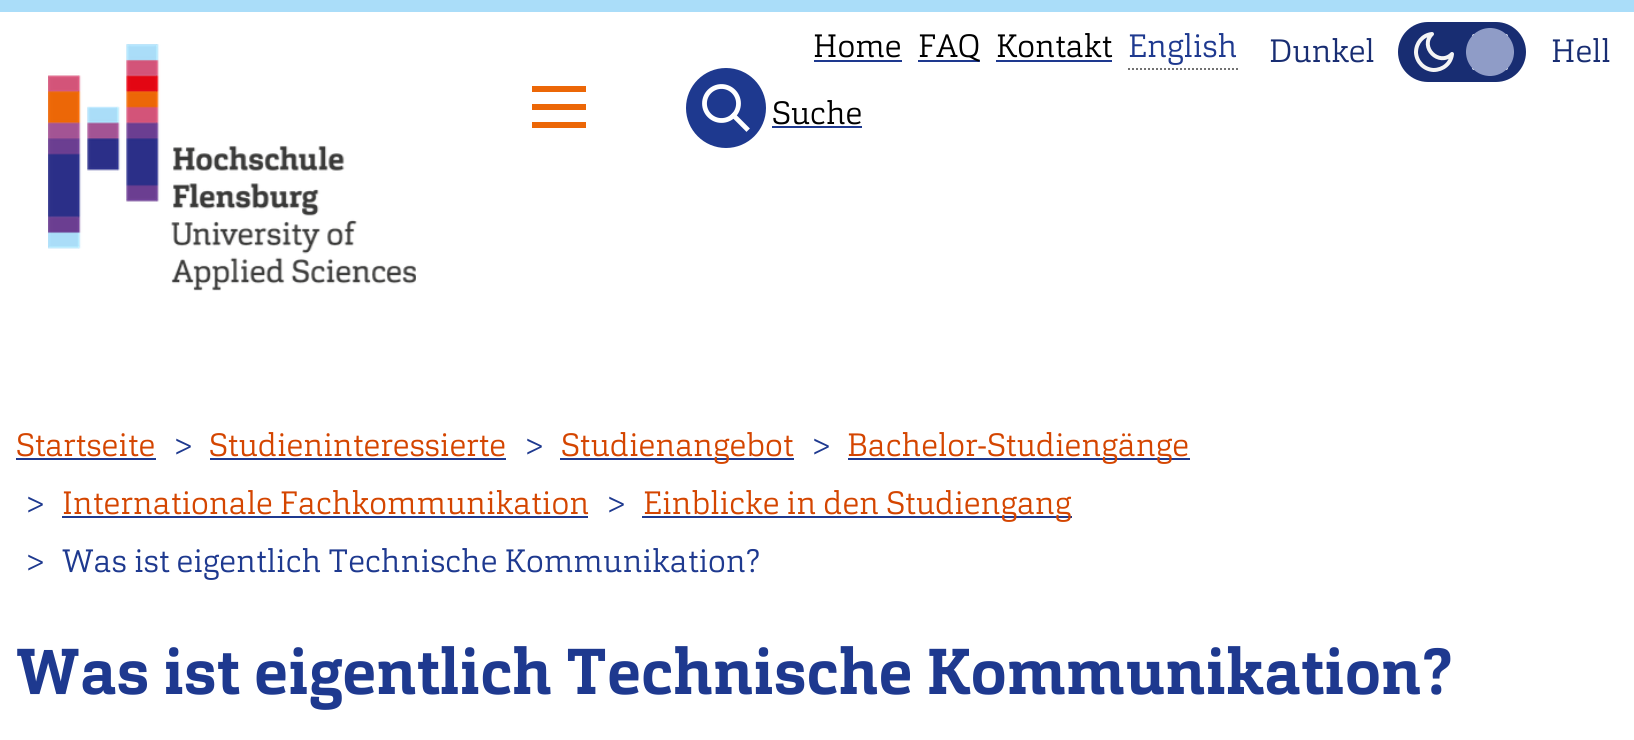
#include <cairo.h>
#include <math.h>
#include <stddef.h>


static void rgb(cairo_t *cr, int r, int g, int b)
{
	cairo_set_source_rgb(cr, r / 255.0, g / 255.0, b / 255.0);
}

static void face(cairo_t *cr, const char *family, double size, int italic, int bold)
{
	cairo_select_font_face(cr, family, italic ? CAIRO_FONT_SLANT_ITALIC : CAIRO_FONT_SLANT_NORMAL,
		bold ? CAIRO_FONT_WEIGHT_BOLD : CAIRO_FONT_WEIGHT_NORMAL);
	cairo_set_font_size(cr, size);
}

static void label(cairo_t *cr, double x, double y, const char *s)
{
	cairo_move_to(cr, x, y);
	cairo_show_text(cr, s);
}

static void tracked(cairo_t *cr, double x, double y, const char *s, double letter, double word)
{
	cairo_move_to(cr, x, y);
	while (*s) {
		char ch[5] = {0};
		int n = 0;
		do ch[n++] = *s++; while ((*s & 0xC0) == 0x80);
		cairo_show_text(cr, ch);
		cairo_rel_move_to(cr, letter + word * (*ch == ' '), 0);
	}
}

static void rect(cairo_t *cr, double x, double y, double w, double h)
{
	cairo_rectangle(cr, x, y, w, h);
	cairo_fill(cr);
}

static void rrect(cairo_t *cr, double x, double y, double w, double h, double r)
{
	cairo_new_sub_path(cr);
	cairo_arc(cr, x + w - r, y + h - r, r, 0, M_PI / 2);
	cairo_arc(cr, x + r, y + h - r, r, M_PI / 2, M_PI);
	cairo_arc(cr, x + r, y + r, r, M_PI, 1.5 * M_PI);
	cairo_arc(cr, x + w - r, y + r, r, 1.5 * M_PI, 2 * M_PI);
	cairo_close_path(cr);
}

static void image(cairo_t *cr, const char *path, double x, double y, double w, double h)
{
	cairo_surface_t *image = cairo_image_surface_create_from_png(path);
	cairo_save(cr);
	cairo_set_source_surface(cr, image, x, y);
	cairo_rectangle(cr, x, y, w, h);
	cairo_fill(cr);
	cairo_restore(cr);
	cairo_surface_destroy(image);
}

static void draw(cairo_t *cr) {
	rgb(cr, 255, 255, 255);
	cairo_paint(cr);
	rgb(cr, 170, 221, 249);
	rect(cr, 0, 0, 1634, 12);
	image(cr, "image0.png", 48, 44, 368, 247);
	face(cr, "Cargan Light", 32, 0, 0);
	rgb(cr, 0, 0, 0);
	label(cr, 813, 57, "Home");
	rgb(cr, 30, 57, 143);
	rect(cr, 814, 60, 88, 2);
	rect(cr, 918, 60, 62, 2);
	rgb(cr, 0, 0, 0);
	label(cr, 918, 57, "FAQ");
	label(cr, 996, 57, "Kontakt");
	rgb(cr, 30, 57, 143);
	rect(cr, 996, 60, 116, 2);
	label(cr, 1128, 57, "English");
	cairo_new_path(cr);
	cairo_move_to(cr, 1128, 69);
	cairo_line_to(cr, 1238, 69);
	rgb(cr, 114, 114, 114);
	cairo_set_dash(cr, (double[]){2, 2}, 2, 0);
	cairo_stroke(cr);
	rgb(cr, 24, 45, 114);
	tracked(cr, 1269, 62, "Dunkel", -0.25, 0);
	rrect(cr, 1398, 22, 128, 60, 30);
	cairo_fill(cr);
	cairo_new_path(cr);
	cairo_move_to(cr, 1490, 30);
	cairo_line_to(cr, 1490, 34);
	cairo_move_to(cr, 1490, 70);
	cairo_line_to(cr, 1490, 74);
	cairo_move_to(cr, 1474, 36);
	cairo_line_to(cr, 1478, 40);
	cairo_move_to(cr, 1502, 64);
	cairo_line_to(cr, 1506, 68);
	cairo_move_to(cr, 1468, 52);
	cairo_line_to(cr, 1472, 52);
	cairo_move_to(cr, 1508, 52);
	cairo_line_to(cr, 1512, 52);
	cairo_move_to(cr, 1474, 68);
	cairo_line_to(cr, 1478, 64);
	cairo_move_to(cr, 1502, 40);
	cairo_line_to(cr, 1506, 36);
	rgb(cr, 245, 245, 245);
	cairo_set_line_width(cr, 4);
	cairo_set_line_cap(cr, CAIRO_LINE_CAP_ROUND);
	cairo_set_line_join(cr, CAIRO_LINE_JOIN_ROUND);
	cairo_set_dash(cr, NULL, 0, 0);
	cairo_stroke(cr);
	cairo_new_path(cr);
	cairo_move_to(cr, 1452, 54);
	cairo_curve_to(cr, 1451, 63.5, 1443, 70, 1433.5, 70);
	cairo_curve_to(cr, 1424, 69.5, 1416.5, 62, 1416, 52.5);
	cairo_curve_to(cr, 1416, 43, 1422.5, 35, 1432, 34);
	cairo_curve_to(cr, 1419, 47, 1439, 67, 1452, 54);
	cairo_close_path(cr);
	cairo_stroke(cr);
	rgb(cr, 143, 156, 199);
	cairo_arc(cr, 1490, 52, 24, 0, 2 * M_PI);
	cairo_fill(cr);
	rgb(cr, 24, 45, 114);
	label(cr, 1551, 62, "Hell");
	rgb(cr, 236, 103, 7);
	rect(cr, 532, 104, 54, 6);
	rect(cr, 532, 86, 54, 6);
	rect(cr, 532, 122, 54, 6);
	rgb(cr, 30, 57, 143);
	cairo_new_path(cr);
	cairo_arc(cr, 726, 108, 40, 0, 2 * M_PI);
	cairo_fill(cr);
	cairo_new_path(cr);
	cairo_move_to(cr, 746.5, 128.5);
	cairo_line_to(cr, 733.5, 115.5);
	rgb(cr, 255, 255, 255);
	cairo_set_line_width(cr, 4.8);
	cairo_set_line_cap(cr, CAIRO_LINE_CAP_SQUARE);
	cairo_set_line_join(cr, CAIRO_LINE_JOIN_MITER);
	cairo_stroke(cr);
	cairo_arc(cr, 721.5, 103.5, 17, 0, 2 * M_PI);
	cairo_set_line_cap(cr, CAIRO_LINE_CAP_BUTT);
	cairo_stroke(cr);
	rgb(cr, 0, 0, 0);
	label(cr, 772, 124, "Suche");
	rgb(cr, 30, 57, 143);
	rect(cr, 772, 126, 90, 2);
	rgb(cr, 212, 69, 0);
	label(cr, 16, 456, "Startseite");
	rgb(cr, 30, 57, 143);
	rect(cr, 16, 458, 140, 2);
	label(cr, 172, 456, ">");
	rgb(cr, 212, 69, 0);
	label(cr, 209, 456, "Studieninteressierte");
	rgb(cr, 30, 57, 143);
	rect(cr, 210, 458, 296, 2);
	label(cr, 523, 456, ">");
	rect(cr, 560, 458, 234, 2);
	rgb(cr, 212, 69, 0);
	label(cr, 561, 456, "Studienangebot");
	rgb(cr, 30, 57, 143);
	label(cr, 810, 456, ">");
	rect(cr, 848, 458, 342, 2);
	rgb(cr, 212, 69, 0);
	label(cr, 847, 456, "Bachelor-Studiengänge");
	rgb(cr, 30, 57, 143);
	label(cr, 24, 514, ">");
	rgb(cr, 212, 69, 0);
	label(cr, 62, 514, "Internationale Fachkommunikation");
	rgb(cr, 30, 57, 143);
	rect(cr, 62, 516, 526, 2);
	label(cr, 605, 514, ">");
	rect(cr, 642, 516, 430, 2);
	rgb(cr, 212, 69, 0);
	label(cr, 643, 514, "Einblicke in den Studiengang");
	rgb(cr, 30, 57, 143);
	label(cr, 24, 572, ">");
	label(cr, 62, 572, "Was ist eigentlich Technische Kommunikation?");
	face(cr, "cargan", 64, 0, 1);
	label(cr, 16, 694, "Was ist eigentlich Technische Kommunikation?");
}

int main(void) {
	cairo_surface_t *surface = cairo_image_surface_create(CAIRO_FORMAT_RGB24, 1634, 740);
	cairo_t *cr = cairo_create(surface);
	cairo_font_options_t *options = cairo_font_options_create();
	cairo_font_options_set_hint_metrics(options, CAIRO_HINT_METRICS_OFF);
	cairo_font_options_set_hint_style(options, CAIRO_HINT_STYLE_NONE);
	cairo_set_font_options(cr, options);
	cairo_set_miter_limit(cr, 4);
	draw(cr);
	cairo_surface_write_to_png(surface, "render.png");
	cairo_font_options_destroy(options);
	cairo_destroy(cr);
	cairo_surface_destroy(surface);
	return 0;
}
